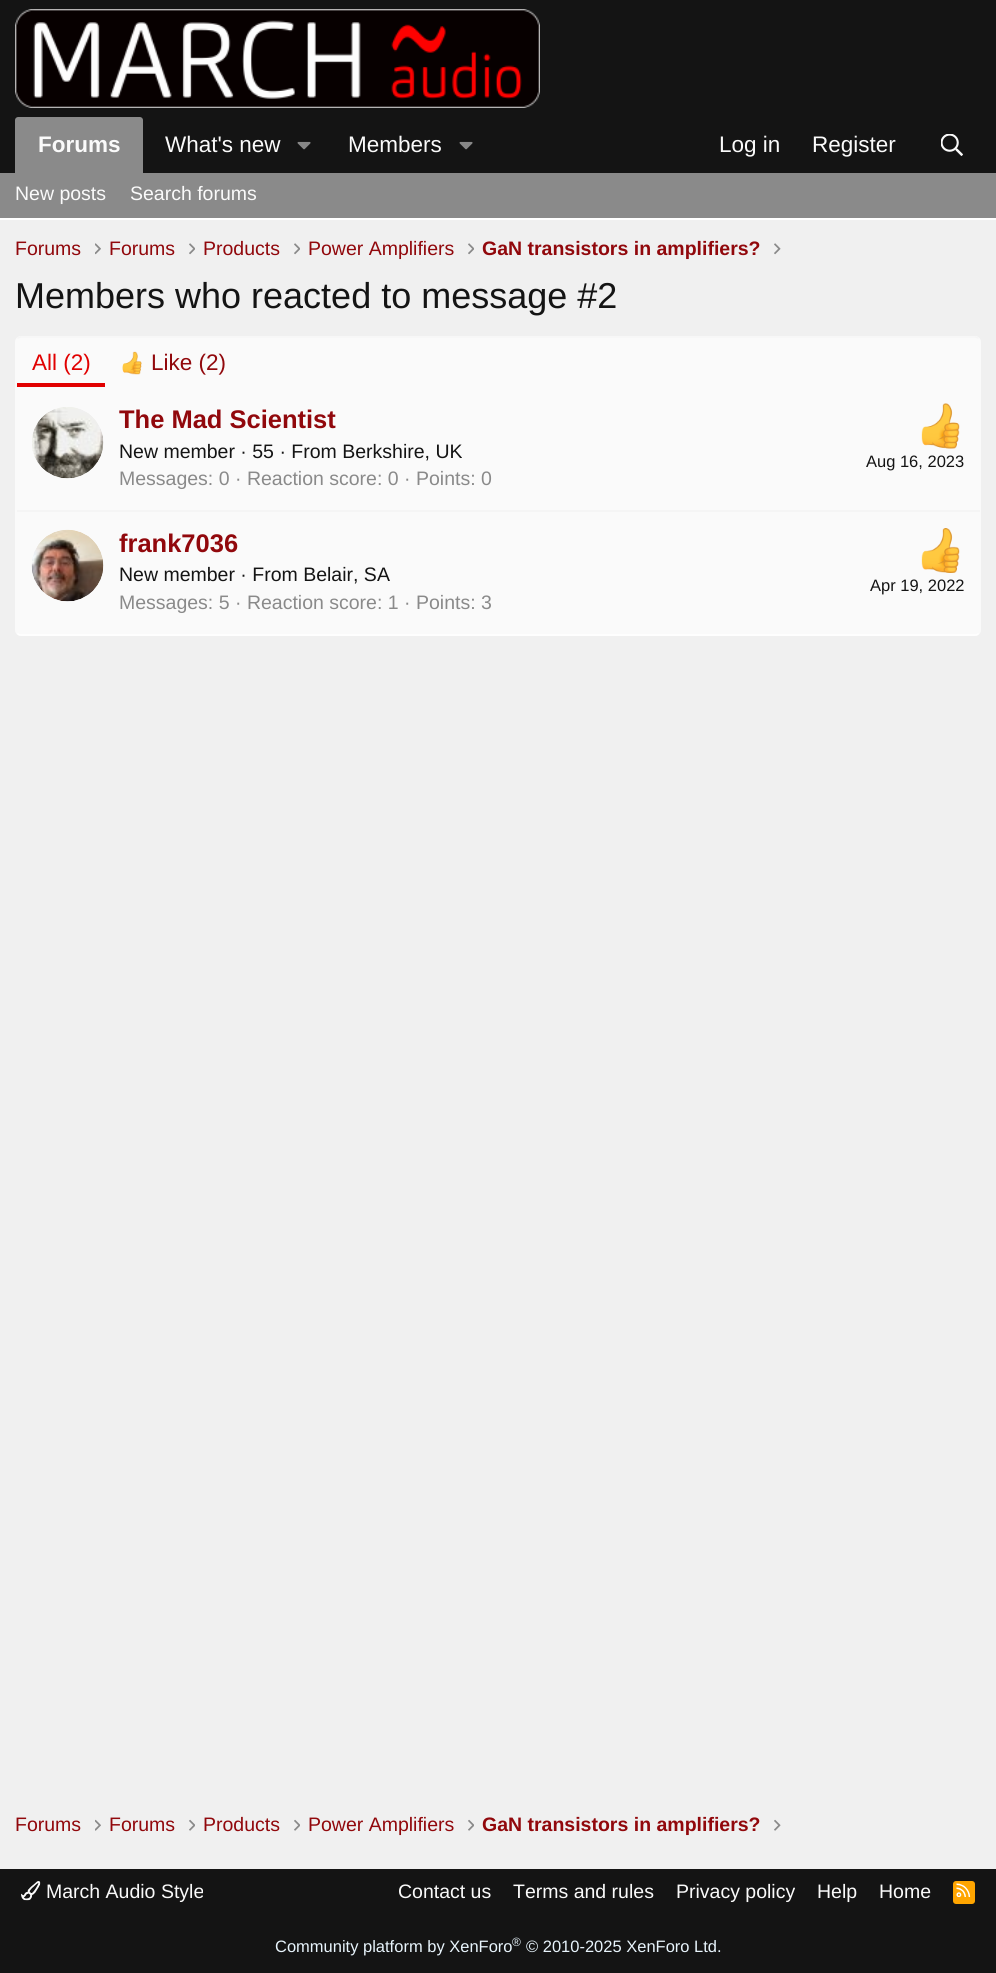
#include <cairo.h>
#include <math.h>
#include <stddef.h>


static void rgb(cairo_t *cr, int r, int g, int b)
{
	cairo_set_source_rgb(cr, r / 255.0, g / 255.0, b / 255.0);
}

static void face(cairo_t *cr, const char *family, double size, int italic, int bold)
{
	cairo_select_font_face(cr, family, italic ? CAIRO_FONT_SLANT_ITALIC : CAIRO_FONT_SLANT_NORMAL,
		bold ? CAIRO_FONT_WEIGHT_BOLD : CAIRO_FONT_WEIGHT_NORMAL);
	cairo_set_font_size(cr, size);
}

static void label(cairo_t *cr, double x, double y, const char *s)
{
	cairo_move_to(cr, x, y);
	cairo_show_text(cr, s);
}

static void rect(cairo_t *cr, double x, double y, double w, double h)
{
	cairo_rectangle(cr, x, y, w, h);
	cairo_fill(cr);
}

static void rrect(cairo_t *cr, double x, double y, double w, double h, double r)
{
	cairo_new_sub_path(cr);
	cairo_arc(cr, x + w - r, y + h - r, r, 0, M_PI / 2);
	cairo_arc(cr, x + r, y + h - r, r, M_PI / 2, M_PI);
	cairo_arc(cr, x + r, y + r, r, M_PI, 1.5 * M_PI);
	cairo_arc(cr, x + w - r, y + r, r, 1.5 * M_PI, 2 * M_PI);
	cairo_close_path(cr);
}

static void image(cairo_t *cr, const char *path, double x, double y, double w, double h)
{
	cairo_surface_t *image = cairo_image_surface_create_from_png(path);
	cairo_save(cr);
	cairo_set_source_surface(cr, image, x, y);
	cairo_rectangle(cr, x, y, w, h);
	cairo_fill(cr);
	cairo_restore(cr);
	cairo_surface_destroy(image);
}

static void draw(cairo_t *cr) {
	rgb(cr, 240, 240, 240);
	cairo_paint(cr);
	rgb(cr, 20, 20, 20);
	rect(cr, 0, 0, 996, 173);
	image(cr, "image0.png", 15, 9, 525, 99);
	rgb(cr, 138, 138, 138);
	cairo_new_path(cr);
	cairo_move_to(cr, 18, 117);
	cairo_line_to(cr, 140, 117);
	cairo_curve_to(cr, 141.5, 117, 143, 118.5, 143, 120);
	cairo_line_to(cr, 143, 173);
	cairo_line_to(cr, 15, 173);
	cairo_line_to(cr, 15, 120);
	cairo_curve_to(cr, 15, 118.5, 16.5, 117, 18, 117);
	cairo_close_path(cr);
	cairo_fill(cr);
	face(cr, "Liberation Sans", 22.5, 0, 1);
	rgb(cr, 250, 250, 250);
	label(cr, 38, 152, "Forums");
	face(cr, "Liberation Sans", 22.5, 0, 0);
	label(cr, 165, 152, "What's new");
	image(cr, "image1.png", 297, 141, 14, 9);
	label(cr, 348, 152, "Members");
	image(cr, "image1.png", 459, 141, 14, 9);
	label(cr, 719, 152, "Log in");
	label(cr, 812, 152, "Register");
	image(cr, "image2.png", 941, 134, 22, 22);
	rgb(cr, 138, 138, 138);
	rect(cr, 0, 173, 996, 45);
	rgb(cr, 255, 255, 255);
	rect(cr, 0, 218, 996, 2);
	face(cr, "Liberation Sans", 19.5, 0, 0);
	rgb(cr, 250, 250, 250);
	label(cr, 15, 200, "New posts");
	label(cr, 130, 200, "Search forums");
	rgb(cr, 145, 8, 12);
	label(cr, 15, 255, "Forums");
	image(cr, "image3.png", 95, 243, 6, 12);
	label(cr, 109, 255, "Forums");
	image(cr, "image4.png", 189, 243, 6, 12);
	label(cr, 203, 255, "Products");
	image(cr, "image4.png", 294, 243, 6, 12);
	label(cr, 308, 255, "Power Amplifiers");
	image(cr, "image4.png", 468, 243, 6, 12);
	face(cr, "Liberation Sans", 19.5, 0, 1);
	label(cr, 482, 255, "GaN transistors in amplifiers?");
	image(cr, "image5.png", 774, 243, 7, 12);
	face(cr, "Liberation Sans", 36, 0, 0);
	rgb(cr, 20, 20, 20);
	label(cr, 15, 308, "Members who reacted to message #2");
	rgb(cr, 250, 250, 250);
	rrect(cr, 15, 336, 966, 300, 6);
	cairo_fill(cr);
	cairo_new_path(cr);
	cairo_move_to(cr, 17.5, 338.5);
	cairo_curve_to(cr, 18.5, 337.5, 19.5, 337, 21, 337);
	cairo_line_to(cr, 975, 337);
	cairo_curve_to(cr, 976.5, 337, 977.5, 337.5, 978.5, 338.5);
	rgb(cr, 245, 245, 245);
	cairo_set_line_width(cr, 1.5);
	cairo_stroke(cr);
	cairo_new_path(cr);
	cairo_move_to(cr, 978.5, 633.5);
	cairo_curve_to(cr, 977.5, 634.5, 976.5, 635, 975, 635);
	cairo_line_to(cr, 21, 635);
	cairo_curve_to(cr, 19.5, 635, 18.5, 634.5, 17.5, 633.5);
	rgb(cr, 255, 255, 255);
	cairo_stroke(cr);
	rgb(cr, 225, 0, 0);
	rect(cr, 17, 383, 88, 4);
	face(cr, "Liberation Sans", 22.5, 0, 0);
	label(cr, 32, 370, "All (2)");
	image(cr, "image6.png", 122, 351, 20, 24);
	rgb(cr, 145, 8, 12);
	label(cr, 151, 370, "Like (2)");
	image(cr, "image7.png", 32, 407, 72, 72);
	face(cr, "Liberation Sans", 25.5, 0, 1);
	label(cr, 119, 428, "The Mad Scientist");
	face(cr, "Liberation Sans", 19.5, 0, 0);
	rgb(cr, 20, 20, 20);
	label(cr, 119, 458, "New member · 55 · From Berkshire, UK");
	image(cr, "image8.png", 921, 403, 39, 46);
	face(cr, "Liberation Sans", 16.5, 0, 0);
	label(cr, 866, 467, "Aug 16, 2023");
	face(cr, "Liberation Sans", 19.5, 0, 0);
	rgb(cr, 138, 138, 138);
	label(cr, 119, 485, "Messages: 0 · Reaction score: 0 · Points: 0");
	rgb(cr, 245, 245, 245);
	rect(cr, 17, 510, 963, 2);
	image(cr, "image9.png", 31, 529, 73, 73);
	face(cr, "Liberation Sans", 25.5, 0, 1);
	rgb(cr, 145, 8, 12);
	label(cr, 119, 552, "frank7036");
	face(cr, "Liberation Sans", 19.5, 0, 0);
	rgb(cr, 20, 20, 20);
	label(cr, 119, 581, "New member · From Belair, SA");
	image(cr, "image10.png", 921, 528, 39, 45);
	face(cr, "Liberation Sans", 16.5, 0, 0);
	label(cr, 870, 591, "Apr 19, 2022");
	face(cr, "Liberation Sans", 19.5, 0, 0);
	rgb(cr, 138, 138, 138);
	label(cr, 119, 609, "Messages: 5 · Reaction score: 1 · Points: 3");
	rgb(cr, 145, 8, 12);
	label(cr, 15, 1831, "Forums");
	image(cr, "image11.png", 95, 1819, 6, 12);
	label(cr, 109, 1831, "Forums");
	image(cr, "image12.png", 189, 1819, 6, 12);
	label(cr, 203, 1831, "Products");
	image(cr, "image12.png", 294, 1819, 6, 12);
	label(cr, 308, 1831, "Power Amplifiers");
	image(cr, "image12.png", 468, 1819, 6, 12);
	face(cr, "Liberation Sans", 19.5, 0, 1);
	label(cr, 482, 1831, "GaN transistors in amplifiers?");
	image(cr, "image13.png", 774, 1819, 7, 12);
	rgb(cr, 20, 20, 20);
	rect(cr, 0, 1869, 996, 104);
	image(cr, "image14.png", 21, 1881, 20, 20);
	face(cr, "Liberation Sans", 19.5, 0, 0);
	rgb(cr, 250, 250, 250);
	label(cr, 46, 1898, "March Audio Style");
	label(cr, 398, 1898, "Contact us");
	label(cr, 513, 1898, "Terms and rules");
	label(cr, 676, 1898, "Privacy policy");
	label(cr, 817, 1898, "Help");
	label(cr, 879, 1898, "Home");
	rgb(cr, 255, 165, 0);
	rrect(cr, 953, 1881, 22, 23, 3);
	cairo_fill(cr);
	image(cr, "image15.png", 956, 1883, 15, 14);
	face(cr, "Liberation Sans", 16.5, 0, 0);
	rgb(cr, 232, 244, 252);
	label(cr, 275, 1952, "Community platform by XenForo");
	face(cr, "Liberation Sans", 12, 0, 0);
	label(cr, 512, 1946, "®");
	face(cr, "Liberation Sans", 16.5, 0, 0);
	label(cr, 526, 1952, "© 2010-2025 XenForo Ltd.");
}

int main(void) {
	cairo_surface_t *surface = cairo_image_surface_create(CAIRO_FORMAT_RGB24, 996, 1973);
	cairo_t *cr = cairo_create(surface);
	cairo_font_options_t *options = cairo_font_options_create();
	cairo_font_options_set_hint_metrics(options, CAIRO_HINT_METRICS_OFF);
	cairo_font_options_set_hint_style(options, CAIRO_HINT_STYLE_NONE);
	cairo_set_font_options(cr, options);
	cairo_set_miter_limit(cr, 4);
	draw(cr);
	cairo_surface_write_to_png(surface, "render.png");
	cairo_font_options_destroy(options);
	cairo_destroy(cr);
	cairo_surface_destroy(surface);
	return 0;
}
